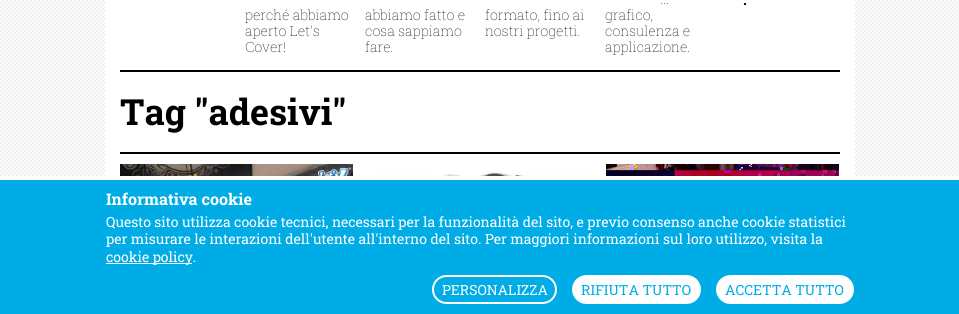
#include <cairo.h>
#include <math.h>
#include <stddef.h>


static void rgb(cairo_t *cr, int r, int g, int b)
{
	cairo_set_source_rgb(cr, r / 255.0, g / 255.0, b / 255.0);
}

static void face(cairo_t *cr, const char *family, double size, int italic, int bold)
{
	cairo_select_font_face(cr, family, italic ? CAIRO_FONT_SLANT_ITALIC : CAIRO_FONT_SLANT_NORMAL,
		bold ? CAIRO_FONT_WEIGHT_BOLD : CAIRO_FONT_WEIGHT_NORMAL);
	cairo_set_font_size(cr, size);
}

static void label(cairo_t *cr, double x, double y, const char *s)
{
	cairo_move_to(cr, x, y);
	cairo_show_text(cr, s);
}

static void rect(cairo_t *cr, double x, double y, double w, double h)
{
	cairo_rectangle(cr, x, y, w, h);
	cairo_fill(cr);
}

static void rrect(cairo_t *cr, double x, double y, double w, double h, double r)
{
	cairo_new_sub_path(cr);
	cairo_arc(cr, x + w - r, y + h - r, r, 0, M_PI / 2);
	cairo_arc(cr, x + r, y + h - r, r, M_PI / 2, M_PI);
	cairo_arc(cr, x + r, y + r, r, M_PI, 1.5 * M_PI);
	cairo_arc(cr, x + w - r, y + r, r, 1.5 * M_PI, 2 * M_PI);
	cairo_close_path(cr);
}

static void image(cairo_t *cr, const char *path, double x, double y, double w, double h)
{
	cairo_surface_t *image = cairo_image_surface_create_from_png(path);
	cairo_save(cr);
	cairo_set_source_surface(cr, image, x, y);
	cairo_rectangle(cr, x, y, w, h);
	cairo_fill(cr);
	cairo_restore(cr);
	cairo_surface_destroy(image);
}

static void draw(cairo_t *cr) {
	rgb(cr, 255, 255, 255);
	cairo_paint(cr);
	image(cr, "image0.png", 0, 0, 959, 176);
	rgb(cr, 255, 255, 255);
	rect(cr, 105, 0, 750, 176);
	face(cr, "Roboto Slab Thin", 14, 0, 0);
	rgb(cr, 0, 0, 0);
	label(cr, 660, 4, "...");
	label(cr, 605, 20, "grafico,");
	label(cr, 605, 36, "consulenza e");
	label(cr, 605, 52, "applicazione.");
	face(cr, "Roboto Slab", 15, 0, 1);
	label(cr, 743, 5, ".");
	face(cr, "Roboto Slab Thin", 14, 0, 0);
	label(cr, 245, 20, "perché abbiamo");
	label(cr, 245, 36, "aperto Let's");
	label(cr, 245, 52, "Cover!");
	label(cr, 365, 20, "abbiamo fatto e");
	label(cr, 365, 36, "cosa sappiamo");
	label(cr, 365, 52, "fare.");
	label(cr, 485, 20, "formato, fino ai");
	label(cr, 485, 36, "nostri progetti.");
	rect(cr, 120, 70, 720, 2);
	face(cr, "Roboto Slab", 36, 0, 1);
	label(cr, 120, 125, "Tag \"adesivi\"");
	rect(cr, 120, 152, 720, 2);
	image(cr, "image1.png", 120, 164, 233, 12);
	image(cr, "image2.png", 373, 172, 223, 4);
	image(cr, "image3.png", 606, 164, 233, 12);
	rgb(cr, 0, 172, 230);
	rect(cr, 0, 180, 959, 134);
	face(cr, "Roboto Slab", 16, 0, 1);
	rgb(cr, 255, 255, 255);
	label(cr, 106, 205, "Informativa cookie");
	face(cr, "Roboto Slab", 14, 0, 0);
	label(cr, 106, 227, "Questo sito utilizza cookie tecnici, necessari per la funzionalità del sito, e previo consenso anche cookie statistici");
	label(cr, 106, 244, "per misurare le interazioni dell'utente all'interno del sito. Per maggiori informazioni sul loro utilizzo, visita la");
	rect(cr, 106, 263, 86, 1);
	label(cr, 106, 262, "cookie policy.");
	rrect(cr, 433, 276, 123, 27, 13.5);
	cairo_stroke(cr);
	label(cr, 442, 295, "PERSONALIZZA");
	rrect(cr, 573, 276, 127, 27, 13.5);
	cairo_fill_preserve(cr);
	cairo_stroke(cr);
	rgb(cr, 0, 172, 230);
	label(cr, 581, 295, "RIFIUTA TUTTO");
	rgb(cr, 255, 255, 255);
	rrect(cr, 717, 276, 136, 27, 13.5);
	cairo_fill_preserve(cr);
	cairo_stroke(cr);
	rgb(cr, 0, 172, 230);
	label(cr, 725, 295, "ACCETTA TUTTO");
}

int main(void) {
	cairo_surface_t *surface = cairo_image_surface_create(CAIRO_FORMAT_RGB24, 959, 314);
	cairo_t *cr = cairo_create(surface);
	cairo_font_options_t *options = cairo_font_options_create();
	cairo_font_options_set_hint_metrics(options, CAIRO_HINT_METRICS_OFF);
	cairo_font_options_set_hint_style(options, CAIRO_HINT_STYLE_NONE);
	cairo_set_font_options(cr, options);
	cairo_set_miter_limit(cr, 4);
	draw(cr);
	cairo_surface_write_to_png(surface, "render.png");
	cairo_font_options_destroy(options);
	cairo_destroy(cr);
	cairo_surface_destroy(surface);
	return 0;
}
